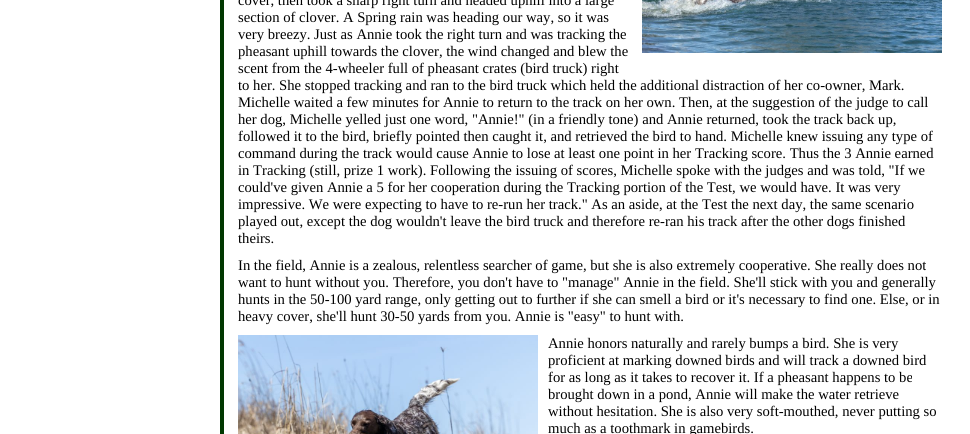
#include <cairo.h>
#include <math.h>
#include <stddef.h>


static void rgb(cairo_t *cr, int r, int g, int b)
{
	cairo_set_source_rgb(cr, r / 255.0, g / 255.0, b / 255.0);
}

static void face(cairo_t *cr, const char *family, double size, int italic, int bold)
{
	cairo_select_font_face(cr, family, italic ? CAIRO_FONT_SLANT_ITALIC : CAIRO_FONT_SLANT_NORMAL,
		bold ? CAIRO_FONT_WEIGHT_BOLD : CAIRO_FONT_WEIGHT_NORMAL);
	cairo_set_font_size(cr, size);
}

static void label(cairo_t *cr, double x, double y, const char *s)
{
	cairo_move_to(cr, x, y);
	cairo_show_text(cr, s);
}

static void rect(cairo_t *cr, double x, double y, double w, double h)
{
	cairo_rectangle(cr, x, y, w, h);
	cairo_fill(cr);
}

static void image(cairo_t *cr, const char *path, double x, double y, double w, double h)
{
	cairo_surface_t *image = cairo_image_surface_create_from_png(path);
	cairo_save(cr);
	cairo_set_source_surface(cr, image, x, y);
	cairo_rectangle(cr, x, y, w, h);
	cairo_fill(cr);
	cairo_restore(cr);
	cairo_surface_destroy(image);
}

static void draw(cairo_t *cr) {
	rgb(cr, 255, 255, 255);
	cairo_paint(cr);
	rgb(cr, 0, 56, 0);
	rect(cr, 220, 0, 4, 434);
	face(cr, "Liberation Serif", 14.65, 0, 0);
	rgb(cr, 0, 0, 0);
	label(cr, 238, 5, "cover, then took a sharp right turn and headed uphill into a large");
	label(cr, 238, 22, "section of clover. A Spring rain was heading our way, so it was");
	label(cr, 238, 39, "very breezy. Just as Annie took the right turn and was tracking the");
	label(cr, 238, 56, "pheasant uphill towards the clover, the wind changed and blew the");
	label(cr, 238, 73, "scent from the 4-wheeler full of pheasant crates (bird truck) right");
	label(cr, 238, 90, "to her. She stopped tracking and ran to the bird truck which held the additional distraction of her co-owner, Mark.");
	label(cr, 238, 107, "Michelle waited a few minutes for Annie to return to the track on her own. Then, at the suggestion of the judge to call");
	label(cr, 238, 124, "her dog, Michelle yelled just one word, \"Annie!\" (in a friendly tone) and Annie returned, took the track back up,");
	label(cr, 238, 141, "followed it to the bird, briefly pointed then caught it, and retrieved the bird to hand. Michelle knew issuing any type of");
	label(cr, 238, 158, "command during the track would cause Annie to lose at least one point in her Tracking score. Thus the 3 Annie earned");
	label(cr, 238, 175, "in Tracking (still, prize 1 work). Following the issuing of scores, Michelle spoke with the judges and was told, \"If we");
	label(cr, 238, 192, "could've given Annie a 5 for her cooperation during the Tracking portion of the Test, we would have. It was very");
	label(cr, 238, 209, "impressive. We were expecting to have to re-run her track.\" As an aside, at the Test the next day, the same scenario");
	label(cr, 238, 226, "played out, except the dog wouldn't leave the bird truck and therefore re-ran his track after the other dogs finished");
	label(cr, 238, 243, "theirs.");
	image(cr, "image0.png", 642, 0, 300, 53);
	label(cr, 238, 270, "In the field, Annie is a zealous, relentless searcher of game, but she is also extremely cooperative. She really does not");
	label(cr, 238, 287, "want to hunt without you. Therefore, you don't have to \"manage\" Annie in the field. She'll stick with you and generally");
	label(cr, 238, 304, "hunts in the 50-100 yard range, only getting out to further if she can smell a bird or it's necessary to find one. Else, or in");
	label(cr, 238, 321, "heavy cover, she'll hunt 30-50 yards from you. Annie is \"easy\" to hunt with.");
	image(cr, "image1.png", 238, 335, 300, 99);
	label(cr, 548, 348, "Annie honors naturally and rarely bumps a bird. She is very");
	label(cr, 548, 365, "proficient at marking downed birds and will track a downed bird");
	label(cr, 548, 382, "for as long as it takes to recover it. If a pheasant happens to be");
	label(cr, 548, 399, "brought down in a pond, Annie will make the water retrieve");
	label(cr, 548, 416, "without hesitation. She is also very soft-mouthed, never putting so");
	label(cr, 548, 433, "much as a toothmark in gamebirds.");
}

int main(void) {
	cairo_surface_t *surface = cairo_image_surface_create(CAIRO_FORMAT_RGB24, 970, 434);
	cairo_t *cr = cairo_create(surface);
	cairo_font_options_t *options = cairo_font_options_create();
	cairo_font_options_set_hint_metrics(options, CAIRO_HINT_METRICS_OFF);
	cairo_font_options_set_hint_style(options, CAIRO_HINT_STYLE_NONE);
	cairo_set_font_options(cr, options);
	cairo_set_miter_limit(cr, 4);
	draw(cr);
	cairo_surface_write_to_png(surface, "render.png");
	cairo_font_options_destroy(options);
	cairo_destroy(cr);
	cairo_surface_destroy(surface);
	return 0;
}
